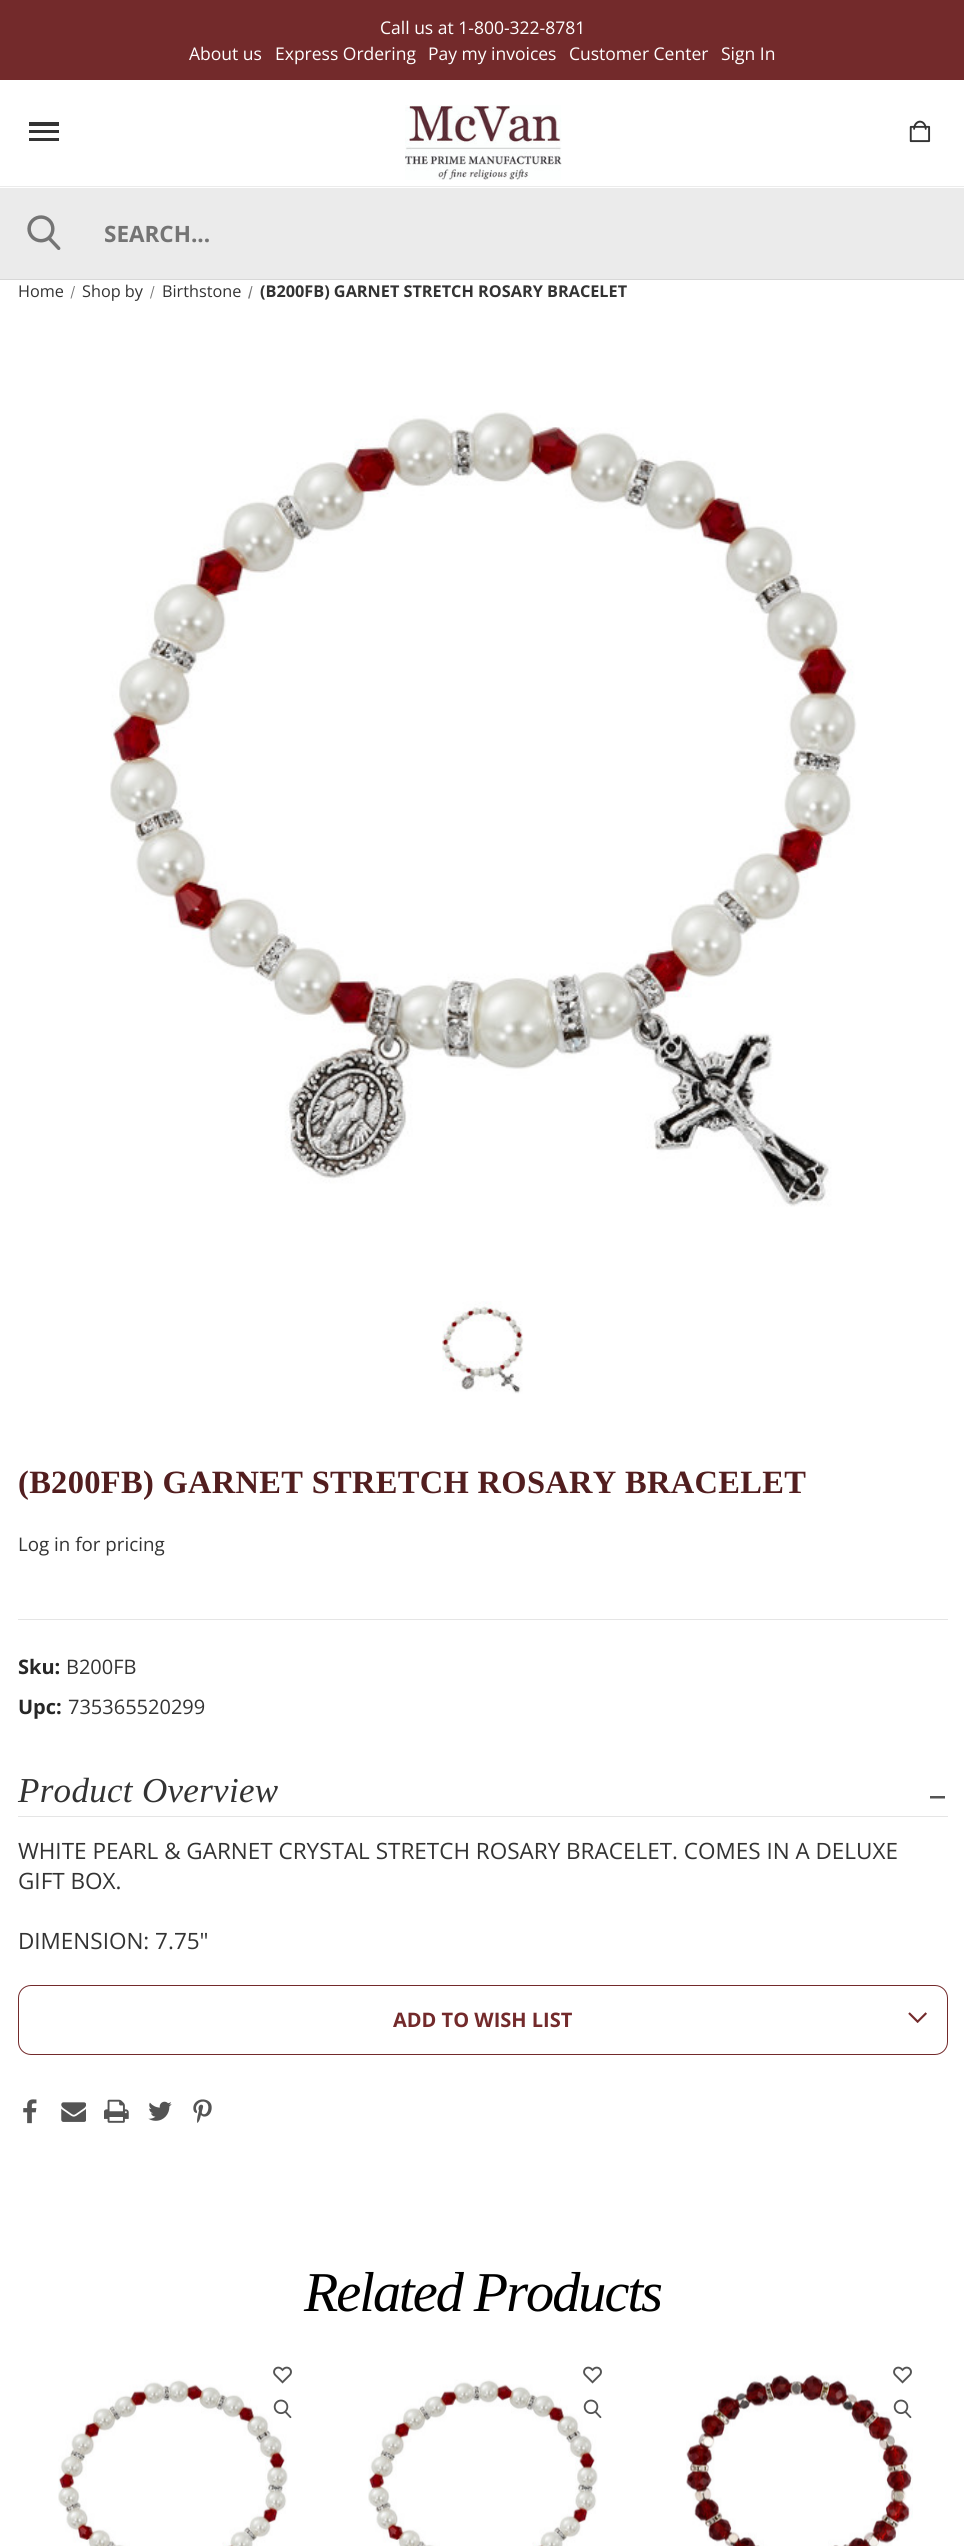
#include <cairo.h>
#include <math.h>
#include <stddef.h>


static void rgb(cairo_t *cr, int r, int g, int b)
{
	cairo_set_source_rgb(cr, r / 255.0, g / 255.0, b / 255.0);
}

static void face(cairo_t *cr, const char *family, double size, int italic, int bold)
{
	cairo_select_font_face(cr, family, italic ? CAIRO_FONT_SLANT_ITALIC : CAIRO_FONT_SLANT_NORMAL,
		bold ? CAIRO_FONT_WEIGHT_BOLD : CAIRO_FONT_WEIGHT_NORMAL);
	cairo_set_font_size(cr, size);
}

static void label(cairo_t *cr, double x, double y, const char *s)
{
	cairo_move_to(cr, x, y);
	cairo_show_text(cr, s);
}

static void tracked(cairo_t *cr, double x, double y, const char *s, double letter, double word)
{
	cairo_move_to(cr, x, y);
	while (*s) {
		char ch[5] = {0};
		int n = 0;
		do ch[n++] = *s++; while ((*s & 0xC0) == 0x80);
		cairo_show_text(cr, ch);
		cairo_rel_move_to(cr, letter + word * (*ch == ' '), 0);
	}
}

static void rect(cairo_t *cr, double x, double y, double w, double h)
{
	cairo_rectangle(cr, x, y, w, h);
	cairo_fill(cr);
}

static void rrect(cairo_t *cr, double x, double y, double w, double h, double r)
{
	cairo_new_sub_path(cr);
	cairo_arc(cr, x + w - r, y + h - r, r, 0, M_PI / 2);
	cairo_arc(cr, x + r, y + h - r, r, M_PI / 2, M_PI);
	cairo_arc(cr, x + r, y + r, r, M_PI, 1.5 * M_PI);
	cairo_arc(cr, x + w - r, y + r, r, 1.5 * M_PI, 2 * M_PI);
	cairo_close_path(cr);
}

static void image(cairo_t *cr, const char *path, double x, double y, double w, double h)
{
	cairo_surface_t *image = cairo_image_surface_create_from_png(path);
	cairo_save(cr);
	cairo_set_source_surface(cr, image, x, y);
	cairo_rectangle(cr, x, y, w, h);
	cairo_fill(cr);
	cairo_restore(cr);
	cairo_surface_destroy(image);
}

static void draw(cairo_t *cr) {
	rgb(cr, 255, 255, 255);
	cairo_paint(cr);
	rgb(cr, 235, 235, 235);
	rect(cr, 0, 186, 964, 1);
	rgb(cr, 115, 42, 43);
	rect(cr, 0, 0, 964, 80);
	face(cr, "Open Sans", 17.5, 0, 0);
	rgb(cr, 255, 255, 255);
	label(cr, 380, 34, "Call us at 1-800-322-8781");
	label(cr, 189, 60, "About us");
	label(cr, 275, 60, "Express Ordering");
	label(cr, 428, 60, "Pay my invoices");
	label(cr, 569, 60, "Customer Center");
	label(cr, 721, 60, "Sign In");
	rgb(cr, 51, 51, 51);
	rect(cr, 29, 122, 30, 4);
	rect(cr, 29, 130, 30, 3);
	rect(cr, 29, 138, 30, 3);
	image(cr, "image0.png", 405, 105, 157, 75);
	image(cr, "image1.png", 909, 120, 22, 23);
	rgb(cr, 235, 235, 235);
	rect(cr, 0, 188, 964, 91);
	rgb(cr, 215, 215, 215);
	rect(cr, 0, 279, 964, 1);
	image(cr, "image2.png", 27, 215, 34, 35);
	face(cr, "Open Sans", 22.5, 0, 1);
	rgb(cr, 116, 116, 116);
	label(cr, 104, 242, "SEARCH...");
	face(cr, "Open Sans", 16.25, 0, 0);
	rgb(cr, 51, 51, 51);
	label(cr, 18, 297, "Home");
	rgb(cr, 117, 117, 117);
	cairo_new_path(cr);
	cairo_move_to(cr, 74, 286);
	cairo_line_to(cr, 75, 286);
	cairo_line_to(cr, 71.5, 298.5);
	cairo_line_to(cr, 70.5, 298.5);
	cairo_close_path(cr);
	cairo_fill(cr);
	rgb(cr, 51, 51, 51);
	label(cr, 82, 297, "Shop by");
	rgb(cr, 117, 117, 117);
	cairo_new_path(cr);
	cairo_move_to(cr, 153.5, 286);
	cairo_line_to(cr, 154.5, 286);
	cairo_line_to(cr, 151, 298.5);
	cairo_line_to(cr, 150, 298.5);
	cairo_close_path(cr);
	cairo_fill(cr);
	rgb(cr, 51, 51, 51);
	label(cr, 162, 297, "Birthstone");
	rgb(cr, 117, 117, 117);
	cairo_new_path(cr);
	cairo_move_to(cr, 251.5, 286);
	cairo_line_to(cr, 252.5, 286);
	cairo_line_to(cr, 249.5, 298.5);
	cairo_line_to(cr, 248, 298.5);
	cairo_close_path(cr);
	cairo_fill(cr);
	face(cr, "Open Sans", 16.25, 0, 1);
	rgb(cr, 51, 51, 51);
	label(cr, 260, 297, "(B200FB) GARNET STRETCH ROSARY BRACELET");
	image(cr, "image3.png", 110, 410, 747, 797);
	image(cr, "image4.png", 442, 1301, 82, 93);
	face(cr, "Liberation Serif", 32.5, 0, 1);
	rgb(cr, 82, 30, 31);
	tracked(cr, 18, 1493, "(B200FB) GARNET STRETCH ROSARY BRACELET", 0.3, 0);
	rgb(cr, 229, 229, 229);
	rect(cr, 18, 1619, 930, 1);
	face(cr, "Open Sans", 18.75, 0, 0);
	rgb(cr, 51, 51, 51);
	label(cr, 18, 1551, "Log in for pricing");
	face(cr, "Open Sans", 20, 0, 1);
	rgb(cr, 39, 39, 39);
	label(cr, 18, 1674, "Sku:");
	face(cr, "Open Sans", 20, 0, 0);
	rgb(cr, 51, 51, 51);
	label(cr, 66, 1674, "B200FB");
	face(cr, "Open Sans", 20, 0, 1);
	rgb(cr, 39, 39, 39);
	label(cr, 18, 1714, "Upc:");
	face(cr, "Open Sans", 20, 0, 0);
	rgb(cr, 51, 51, 51);
	label(cr, 68, 1714, "735365520299");
	rgb(cr, 229, 229, 229);
	rect(cr, 18, 1816, 930, 1);
	face(cr, "Liberation Serif", 35, 1, 0);
	rgb(cr, 51, 51, 51);
	tracked(cr, 18, 1802, "Product Overview", 0.3, 0);
	rgb(cr, 84, 84, 84);
	cairo_new_path(cr);
	cairo_move_to(cr, 930, 1798.5);
	cairo_line_to(cr, 930, 1796);
	cairo_line_to(cr, 945, 1796);
	cairo_line_to(cr, 945, 1798.5);
	cairo_fill(cr);
	face(cr, "Open Sans", 22.5, 0, 0);
	rgb(cr, 51, 51, 51);
	label(cr, 18, 1859, "WHITE PEARL & GARNET CRYSTAL STRETCH ROSARY BRACELET. COMES IN A DELUXE");
	label(cr, 18, 1889, "GIFT BOX.");
	label(cr, 18, 1949, "DIMENSION: 7.75\"");
	rrect(cr, 18.5, 1985.5, 929, 69, 12.5);
	rgb(cr, 115, 42, 43);
	cairo_set_line_width(cr, 1);
	cairo_stroke(cr);
	face(cr, "Open Sans", 20, 0, 1);
	label(cr, 393, 2027, "ADD TO WISH LIST");
	image(cr, "image5.png", 908, 2012, 19, 11);
	image(cr, "image6.png", 23, 2099, 14, 25);
	image(cr, "image7.png", 61, 2102, 25, 20);
	image(cr, "image8.png", 104, 2099, 25, 24);
	image(cr, "image9.png", 148, 2101, 24, 20);
	image(cr, "image10.png", 193, 2099, 19, 24);
	face(cr, "Liberation Serif", 56.25, 1, 0);
	rgb(cr, 0, 0, 0);
	tracked(cr, 304, 2311, "Related Products", -2, 0);
	image(cr, "image13.png", 58, 2379, 230, 167);
	image(cr, "image11.png", 273, 2366, 19, 18);
	image(cr, "image12.png", 273, 2399, 19, 20);
	image(cr, "image13.png", 368, 2379, 230, 167);
	image(cr, "image11.png", 583, 2366, 19, 18);
	image(cr, "image12.png", 583, 2399, 19, 20);
	image(cr, "image14.png", 686, 2374, 227, 172);
	image(cr, "image11.png", 893, 2366, 19, 18);
	image(cr, "image12.png", 893, 2399, 19, 20);
}

int main(void) {
	cairo_surface_t *surface = cairo_image_surface_create(CAIRO_FORMAT_RGB24, 964, 2546);
	cairo_t *cr = cairo_create(surface);
	cairo_font_options_t *options = cairo_font_options_create();
	cairo_font_options_set_hint_metrics(options, CAIRO_HINT_METRICS_OFF);
	cairo_font_options_set_hint_style(options, CAIRO_HINT_STYLE_NONE);
	cairo_set_font_options(cr, options);
	cairo_set_miter_limit(cr, 4);
	draw(cr);
	cairo_surface_write_to_png(surface, "render.png");
	cairo_font_options_destroy(options);
	cairo_destroy(cr);
	cairo_surface_destroy(surface);
	return 0;
}
